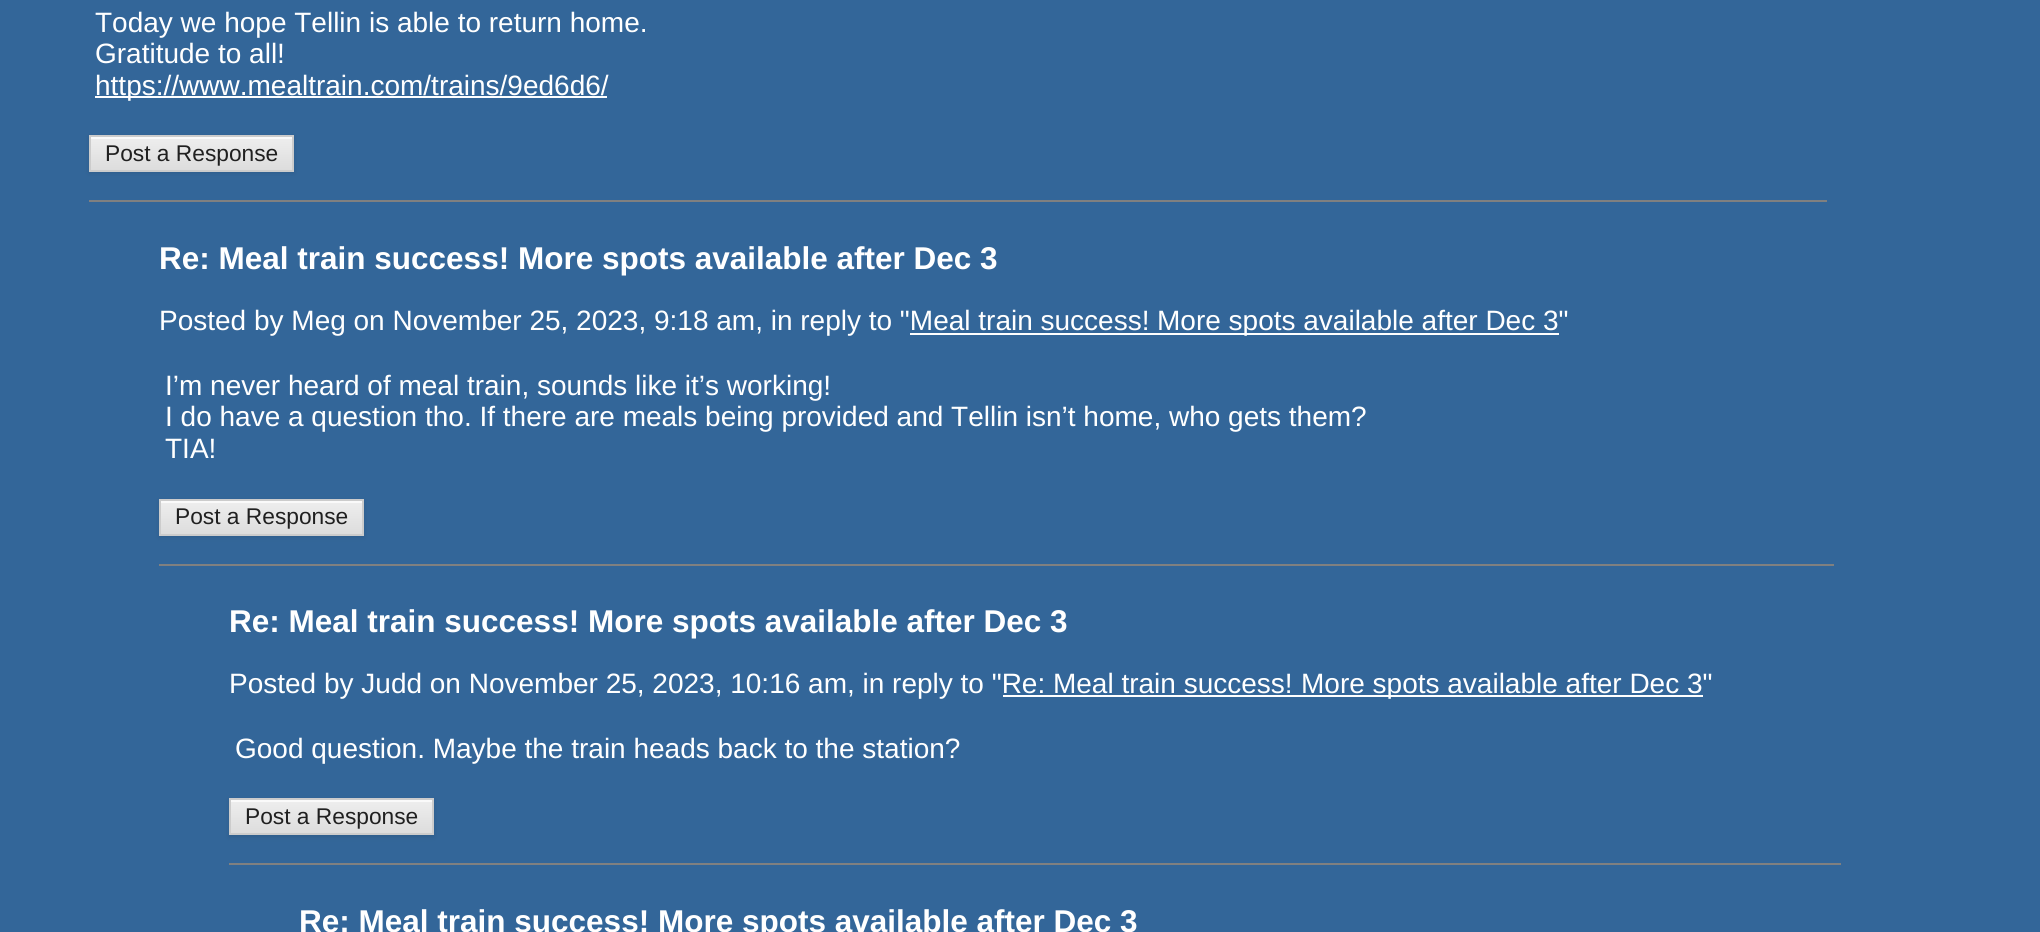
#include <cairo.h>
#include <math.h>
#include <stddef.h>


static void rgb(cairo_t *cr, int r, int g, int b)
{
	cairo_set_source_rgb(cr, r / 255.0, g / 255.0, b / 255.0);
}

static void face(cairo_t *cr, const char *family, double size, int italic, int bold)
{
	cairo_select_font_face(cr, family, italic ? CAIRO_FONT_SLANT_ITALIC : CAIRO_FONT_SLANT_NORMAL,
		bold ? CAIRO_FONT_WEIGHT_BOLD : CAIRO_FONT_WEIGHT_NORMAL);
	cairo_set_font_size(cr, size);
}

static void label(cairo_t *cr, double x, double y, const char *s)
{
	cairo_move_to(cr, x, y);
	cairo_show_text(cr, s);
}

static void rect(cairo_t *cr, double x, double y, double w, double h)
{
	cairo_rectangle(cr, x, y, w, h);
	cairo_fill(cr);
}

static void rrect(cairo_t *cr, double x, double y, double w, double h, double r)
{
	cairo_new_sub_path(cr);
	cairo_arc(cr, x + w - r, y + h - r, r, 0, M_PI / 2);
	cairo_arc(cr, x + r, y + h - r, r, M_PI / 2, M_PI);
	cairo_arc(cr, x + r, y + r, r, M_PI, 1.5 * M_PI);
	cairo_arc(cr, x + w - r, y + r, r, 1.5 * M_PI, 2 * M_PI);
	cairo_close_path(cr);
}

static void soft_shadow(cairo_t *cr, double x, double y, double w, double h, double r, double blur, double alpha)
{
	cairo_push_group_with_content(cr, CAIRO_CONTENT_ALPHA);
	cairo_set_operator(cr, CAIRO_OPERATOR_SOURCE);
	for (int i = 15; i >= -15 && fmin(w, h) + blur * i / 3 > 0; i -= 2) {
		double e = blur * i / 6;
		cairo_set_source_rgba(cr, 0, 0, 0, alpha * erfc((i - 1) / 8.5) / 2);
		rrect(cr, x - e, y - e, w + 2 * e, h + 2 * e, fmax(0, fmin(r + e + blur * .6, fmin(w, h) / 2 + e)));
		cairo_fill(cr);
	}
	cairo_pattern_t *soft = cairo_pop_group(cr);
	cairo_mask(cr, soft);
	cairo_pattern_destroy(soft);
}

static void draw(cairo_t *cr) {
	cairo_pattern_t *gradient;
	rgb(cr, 51, 102, 153);
	cairo_paint(cr);
	face(cr, "Liberation Sans", 28, 0, 0);
	rgb(cr, 255, 255, 255);
	label(cr, 95, 32, "Today we hope Tellin is able to return home.");
	label(cr, 95, 63, "Gratitude to all!");
	rect(cr, 95, 96, 512, 2);
	label(cr, 95, 95, "https://www.mealtrain.com/trains/9ed6d6/");
	rgb(cr, 0, 0, 0);
	soft_shadow(cr, 89, 137, 205, 36, 0, 2.5, 0.1);
	gradient = cairo_pattern_create_linear(192, 137, 192, 170);
	cairo_pattern_add_color_stop_rgba(gradient, 0, 0.933, 0.933, 0.933, 1);
	cairo_pattern_add_color_stop_rgba(gradient, 1, 0.867, 0.867, 0.867, 1);
	cairo_set_source(cr, gradient);
	cairo_pattern_destroy(gradient);
	rect(cr, 91, 139, 201, 31);
	rgb(cr, 250, 250, 250);
	rect(cr, 91, 137, 201, 2);
	cairo_rectangle(cr, 90, 136, 203, 35);
	rgb(cr, 204, 204, 204);
	cairo_stroke(cr);
	face(cr, "Liberation Sans", 22.75, 0, 0);
	rgb(cr, 32, 32, 32);
	label(cr, 105, 161, "Post a Response");
	rgb(cr, 128, 128, 128);
	rect(cr, 89, 200, 1738, 2);
	face(cr, "Liberation Sans", 31.5, 0, 1);
	rgb(cr, 255, 255, 255);
	label(cr, 159, 269, "Re: Meal train success! More spots available after Dec 3");
	face(cr, "Liberation Sans", 28, 0, 0);
	label(cr, 159, 330, "Posted by Meg on November 25, 2023, 9:18 am, in reply to \"Meal train success!");
	rect(cr, 910, 333, 649, 2);
	label(cr, 1157, 330, "More spots available after Dec 3\"");
	label(cr, 165, 395, "I’m never heard of meal train, sounds like it’s working!");
	label(cr, 165, 426, "I do have a question tho. If there are meals being provided and Tellin isn’t home, who gets them?");
	label(cr, 165, 458, "TIA!");
	rgb(cr, 0, 0, 0);
	soft_shadow(cr, 159, 501, 205, 36, 0, 2.5, 0.1);
	gradient = cairo_pattern_create_linear(262, 501, 262, 534);
	cairo_pattern_add_color_stop_rgba(gradient, 0, 0.933, 0.933, 0.933, 1);
	cairo_pattern_add_color_stop_rgba(gradient, 1, 0.867, 0.867, 0.867, 1);
	cairo_set_source(cr, gradient);
	cairo_pattern_destroy(gradient);
	rect(cr, 161, 503, 201, 31);
	rgb(cr, 250, 250, 250);
	rect(cr, 161, 501, 201, 2);
	cairo_rectangle(cr, 160, 500, 203, 35);
	rgb(cr, 204, 204, 204);
	cairo_stroke(cr);
	face(cr, "Liberation Sans", 22.75, 0, 0);
	rgb(cr, 32, 32, 32);
	label(cr, 175, 524, "Post a Response");
	rgb(cr, 128, 128, 128);
	rect(cr, 159, 564, 1675, 2);
	face(cr, "Liberation Sans", 31.5, 0, 1);
	rgb(cr, 255, 255, 255);
	label(cr, 229, 632, "Re: Meal train success! More spots available after Dec 3");
	face(cr, "Liberation Sans", 28, 0, 0);
	label(cr, 229, 693, "Posted by Judd on November 25, 2023, 10:16 am, in reply to \"Re: Meal train success!");
	rect(cr, 1003, 695, 700, 2);
	label(cr, 1301, 693, "More spots available after Dec 3\"");
	label(cr, 235, 758, "Good question. Maybe the train heads back to the station?");
	rgb(cr, 0, 0, 0);
	soft_shadow(cr, 229, 800, 205, 37, 0, 2.5, 0.1);
	gradient = cairo_pattern_create_linear(332, 800, 332, 833);
	cairo_pattern_add_color_stop_rgba(gradient, 0, 0.933, 0.933, 0.933, 1);
	cairo_pattern_add_color_stop_rgba(gradient, 1, 0.867, 0.867, 0.867, 1);
	cairo_set_source(cr, gradient);
	cairo_pattern_destroy(gradient);
	rect(cr, 231, 802, 201, 31);
	rgb(cr, 250, 250, 250);
	rect(cr, 231, 800, 201, 2);
	cairo_rectangle(cr, 230, 799, 203, 35);
	rgb(cr, 204, 204, 204);
	cairo_stroke(cr);
	face(cr, "Liberation Sans", 22.75, 0, 0);
	rgb(cr, 32, 32, 32);
	label(cr, 245, 824, "Post a Response");
	rgb(cr, 128, 128, 128);
	rect(cr, 229, 863, 1612, 2);
	face(cr, "Liberation Sans", 31.5, 0, 1);
	rgb(cr, 255, 255, 255);
	label(cr, 299, 932, "Re: Meal train success! More spots available after Dec 3");
}

int main(void) {
	cairo_surface_t *surface = cairo_image_surface_create(CAIRO_FORMAT_RGB24, 2040, 932);
	cairo_t *cr = cairo_create(surface);
	cairo_font_options_t *options = cairo_font_options_create();
	cairo_font_options_set_hint_metrics(options, CAIRO_HINT_METRICS_OFF);
	cairo_font_options_set_hint_style(options, CAIRO_HINT_STYLE_NONE);
	cairo_set_font_options(cr, options);
	cairo_set_miter_limit(cr, 4);
	draw(cr);
	cairo_surface_write_to_png(surface, "render.png");
	cairo_font_options_destroy(options);
	cairo_destroy(cr);
	cairo_surface_destroy(surface);
	return 0;
}
